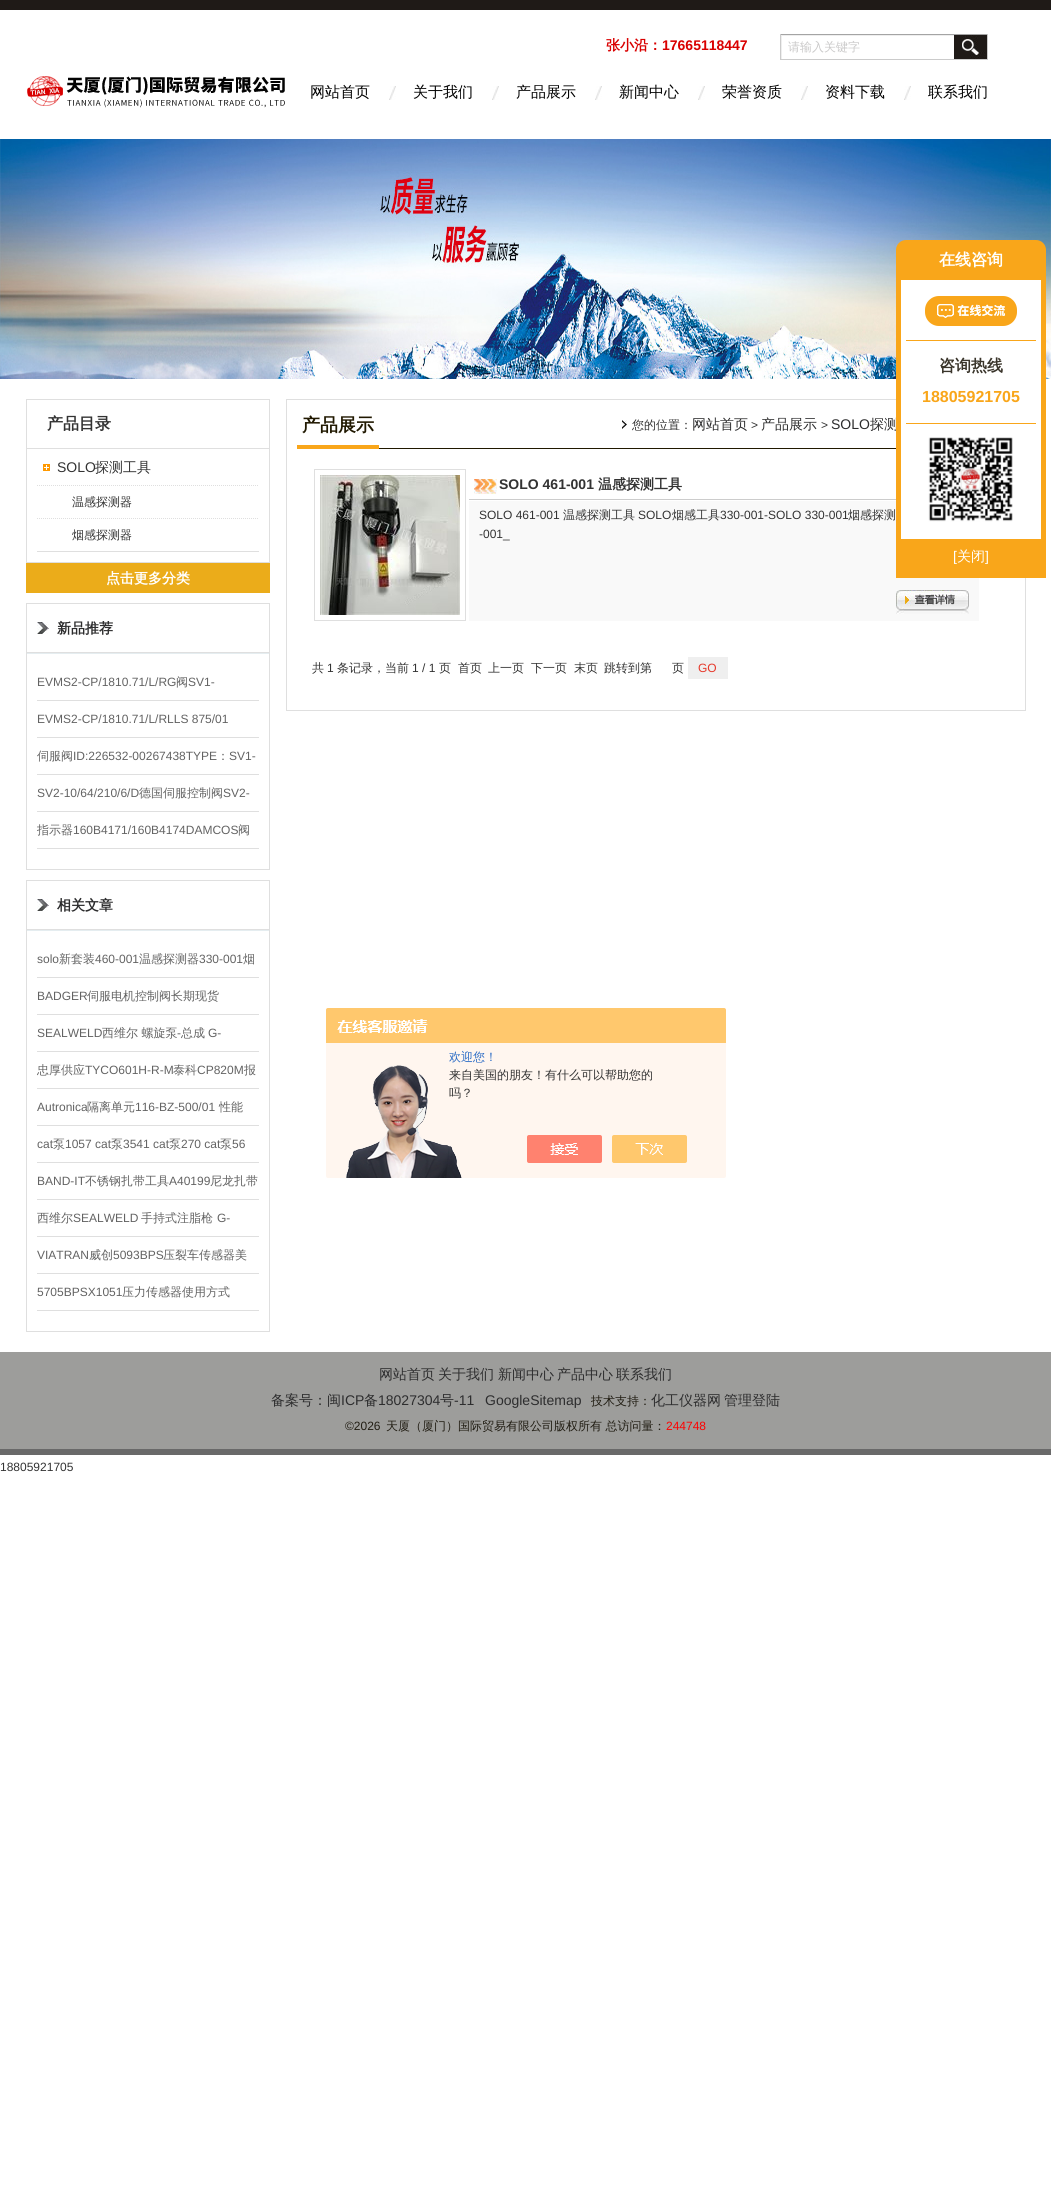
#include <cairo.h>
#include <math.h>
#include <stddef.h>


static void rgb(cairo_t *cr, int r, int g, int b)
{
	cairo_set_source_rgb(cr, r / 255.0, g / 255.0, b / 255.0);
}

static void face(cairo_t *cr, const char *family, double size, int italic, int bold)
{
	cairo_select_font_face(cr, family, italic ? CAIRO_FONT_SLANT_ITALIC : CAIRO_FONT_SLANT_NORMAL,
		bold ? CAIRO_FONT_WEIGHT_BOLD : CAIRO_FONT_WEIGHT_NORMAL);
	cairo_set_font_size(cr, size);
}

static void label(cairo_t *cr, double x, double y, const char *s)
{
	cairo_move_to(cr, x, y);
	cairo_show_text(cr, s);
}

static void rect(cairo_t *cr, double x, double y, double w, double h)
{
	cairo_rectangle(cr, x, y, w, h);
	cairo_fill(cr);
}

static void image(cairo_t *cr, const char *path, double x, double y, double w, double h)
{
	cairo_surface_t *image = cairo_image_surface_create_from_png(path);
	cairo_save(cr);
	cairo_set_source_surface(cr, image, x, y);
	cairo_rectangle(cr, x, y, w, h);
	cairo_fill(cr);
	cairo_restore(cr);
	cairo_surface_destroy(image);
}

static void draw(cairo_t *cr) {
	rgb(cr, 255, 255, 255);
	cairo_paint(cr);
	rgb(cr, 31, 26, 23);
	rect(cr, 0, 0, 1051, 10);
	image(cr, "image0.png", 27, 76, 258, 32);
	face(cr, "WenQuanYi Zen Hei", 14, 0, 1);
	rgb(cr, 217, 0, 0);
	label(cr, 606, 50, "张小沿：");
	face(cr, "Liberation Sans", 14, 0, 1);
	label(cr, 662, 50, "17665118447");
	cairo_save(cr);
	cairo_rectangle(cr, 781, 35, 206, 24);
	cairo_clip(cr);
	rgb(cr, 238, 238, 238);
	cairo_set_fill_rule(cr, CAIRO_FILL_RULE_EVEN_ODD);
	cairo_new_path(cr);
	cairo_move_to(cr, 682, -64);
	cairo_line_to(cr, 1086, -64);
	cairo_line_to(cr, 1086, 158);
	cairo_line_to(cr, 682, 158);
	cairo_close_path(cr);
	cairo_move_to(cr, 782, 36);
	cairo_line_to(cr, 988, 36);
	cairo_line_to(cr, 988, 60);
	cairo_line_to(cr, 782, 60);
	cairo_close_path(cr);
	cairo_fill(cr);
	cairo_restore(cr);
	rgb(cr, 164, 164, 164);
	rect(cr, 780, 34, 208, 1);
	rgb(cr, 203, 203, 203);
	rect(cr, 987, 34, 1, 26);
	rect(cr, 780, 59, 208, 1);
	rect(cr, 780, 34, 1, 26);
	face(cr, "WenQuanYi Zen Hei Medium", 12, 0, 0);
	rgb(cr, 202, 201, 201);
	label(cr, 788, 51, "请输入关键字");
	image(cr, "image1.png", 954, 35, 33, 24);
	face(cr, "WenQuanYi Zen Hei Medium", 15, 0, 0);
	rgb(cr, 1, 1, 1);
	label(cr, 310, 97, "网站首页");
	image(cr, "image2.png", 389, 86, 7, 14);
	label(cr, 413, 97, "关于我们");
	image(cr, "image2.png", 492, 86, 7, 14);
	label(cr, 516, 97, "产品展示");
	image(cr, "image2.png", 595, 86, 7, 14);
	label(cr, 619, 97, "新闻中心");
	image(cr, "image2.png", 698, 86, 7, 14);
	label(cr, 722, 97, "荣誉资质");
	image(cr, "image3.png", 801, 86, 7, 14);
	label(cr, 825, 97, "资料下载");
	image(cr, "image2.png", 904, 86, 7, 14);
	label(cr, 928, 97, "联系我们");
	image(cr, "image4.png", 0, 139, 1051, 240);
	cairo_rectangle(cr, 26.5, 399.5, 243, 163);
	rgb(cr, 223, 223, 223);
	cairo_set_line_width(cr, 1);
	cairo_stroke(cr);
	face(cr, "WenQuanYi Zen Hei", 16, 0, 1);
	rgb(cr, 51, 51, 51);
	label(cr, 47, 429, "产品目录");
	rgb(cr, 223, 223, 223);
	rect(cr, 27, 448, 242, 1);
	rect(cr, 37, 551, 222, 1);
	image(cr, "image5.png", 43, 464, 7, 7);
	face(cr, "Liberation Sans", 14, 0, 0);
	rgb(cr, 51, 51, 51);
	label(cr, 57, 472, "SOLO");
	face(cr, "WenQuanYi Zen Hei Medium", 14, 0, 0);
	label(cr, 95, 472, "探测工具");
	cairo_new_path(cr);
	cairo_move_to(cr, 37, 485.5);
	cairo_line_to(cr, 259, 485.5);
	rgb(cr, 223, 223, 223);
	cairo_set_dash(cr, (double[]){1, 1}, 2, 0);
	cairo_stroke(cr);
	face(cr, "WenQuanYi Zen Hei Medium", 12, 0, 0);
	rgb(cr, 51, 51, 51);
	label(cr, 72, 506, "温感探测器");
	cairo_new_path(cr);
	cairo_move_to(cr, 37, 518.5);
	cairo_line_to(cr, 259, 518.5);
	rgb(cr, 223, 223, 223);
	cairo_stroke(cr);
	rgb(cr, 51, 51, 51);
	label(cr, 72, 539, "烟感探测器");
	rgb(cr, 235, 172, 26);
	rect(cr, 26, 563, 244, 30);
	face(cr, "WenQuanYi Zen Hei", 14, 0, 1);
	rgb(cr, 255, 255, 255);
	label(cr, 106, 583, "点击更多分类");
	cairo_rectangle(cr, 26.5, 603.5, 243, 266);
	rgb(cr, 223, 223, 223);
	cairo_set_dash(cr, NULL, 0, 0);
	cairo_stroke(cr);
	image(cr, "image6.png", 37, 622, 12, 12);
	rgb(cr, 45, 45, 46);
	label(cr, 57, 633, "新品推荐");
	rgb(cr, 223, 223, 223);
	rect(cr, 27, 652, 242, 1);
	rgb(cr, 229, 237, 240);
	rect(cr, 27, 653, 242, 1);
	rgb(cr, 223, 223, 223);
	rect(cr, 37, 700, 222, 1);
	face(cr, "Liberation Sans", 12, 0, 0);
	rgb(cr, 99, 99, 99);
	label(cr, 37, 686, "EVMS2-CP/1810.71/L/RG");
	face(cr, "WenQuanYi Zen Hei Medium", 12, 0, 0);
	label(cr, 176, 686, "阀");
	face(cr, "Liberation Sans", 12, 0, 0);
	label(cr, 188, 686, "SV1-");
	rgb(cr, 223, 223, 223);
	rect(cr, 37, 737, 222, 1);
	rgb(cr, 99, 99, 99);
	label(cr, 37, 723, "EVMS2-CP/1810.71/L/RLLS 875/01");
	rgb(cr, 223, 223, 223);
	rect(cr, 37, 774, 222, 1);
	face(cr, "WenQuanYi Zen Hei Medium", 12, 0, 0);
	rgb(cr, 99, 99, 99);
	label(cr, 37, 760, "伺服阀");
	face(cr, "Liberation Sans", 12, 0, 0);
	label(cr, 73, 760, "ID:226532-00267438TYPE");
	face(cr, "WenQuanYi Zen Hei Medium", 12, 0, 0);
	label(cr, 217, 760, "：");
	face(cr, "Liberation Sans", 12, 0, 0);
	label(cr, 229, 760, "SV1-");
	rgb(cr, 223, 223, 223);
	rect(cr, 37, 811, 222, 1);
	rgb(cr, 99, 99, 99);
	label(cr, 37, 797, "SV2-10/64/210/6/D");
	face(cr, "WenQuanYi Zen Hei Medium", 12, 0, 0);
	label(cr, 139, 797, "德国伺服控制阀");
	face(cr, "Liberation Sans", 12, 0, 0);
	label(cr, 223, 797, "SV2-");
	rgb(cr, 223, 223, 223);
	rect(cr, 37, 848, 222, 1);
	cairo_save(cr);
	cairo_rectangle(cr, 37, 812, 222, 36);
	cairo_clip(cr);
	face(cr, "WenQuanYi Zen Hei Medium", 12, 0, 0);
	rgb(cr, 99, 99, 99);
	label(cr, 37, 834, "指示器");
	cairo_restore(cr);
	rgb(cr, 99, 99, 99);
	label(cr, 73, 834, "160B4171/160B4174DAMCOS");
	face(cr, "WenQuanYi Zen Hei Medium", 12, 0, 0);
	label(cr, 238, 834, "阀");
	cairo_rectangle(cr, 26.5, 880.5, 243, 451);
	rgb(cr, 223, 223, 223);
	cairo_stroke(cr);
	image(cr, "image6.png", 37, 899, 12, 12);
	face(cr, "WenQuanYi Zen Hei", 14, 0, 1);
	rgb(cr, 45, 45, 46);
	label(cr, 57, 910, "相关文章");
	rgb(cr, 223, 223, 223);
	rect(cr, 27, 929, 242, 1);
	rgb(cr, 229, 237, 240);
	rect(cr, 27, 930, 242, 1);
	rgb(cr, 223, 223, 223);
	rect(cr, 37, 977, 222, 1);
	face(cr, "Liberation Sans", 12, 0, 0);
	rgb(cr, 99, 99, 99);
	label(cr, 37, 963, "solo");
	face(cr, "WenQuanYi Zen Hei Medium", 12, 0, 0);
	label(cr, 59, 963, "新套装");
	face(cr, "Liberation Sans", 12, 0, 0);
	label(cr, 95, 963, "460-001");
	face(cr, "WenQuanYi Zen Hei Medium", 12, 0, 0);
	label(cr, 139, 963, "温感探测器");
	face(cr, "Liberation Sans", 12, 0, 0);
	label(cr, 199, 963, "330-001");
	face(cr, "WenQuanYi Zen Hei Medium", 12, 0, 0);
	label(cr, 243, 963, "烟");
	rgb(cr, 223, 223, 223);
	rect(cr, 37, 1014, 222, 1);
	face(cr, "Liberation Sans", 12, 0, 0);
	rgb(cr, 99, 99, 99);
	label(cr, 37, 1000, "BADGER");
	face(cr, "WenQuanYi Zen Hei Medium", 12, 0, 0);
	label(cr, 87, 1000, "伺服电机控制阀长期现货");
	rgb(cr, 223, 223, 223);
	rect(cr, 37, 1051, 222, 1);
	face(cr, "Liberation Sans", 12, 0, 0);
	rgb(cr, 99, 99, 99);
	label(cr, 37, 1037, "SEALWELD");
	face(cr, "WenQuanYi Zen Hei Medium", 12, 0, 0);
	label(cr, 102, 1037, "西维尔 螺旋泵");
	face(cr, "Liberation Sans", 12, 0, 0);
	label(cr, 177, 1037, "-");
	face(cr, "WenQuanYi Zen Hei Medium", 12, 0, 0);
	label(cr, 181, 1037, "总成");
	face(cr, "Liberation Sans", 12, 0, 0);
	label(cr, 208, 1037, "G-");
	rgb(cr, 223, 223, 223);
	rect(cr, 37, 1088, 222, 1);
	face(cr, "WenQuanYi Zen Hei Medium", 12, 0, 0);
	rgb(cr, 99, 99, 99);
	label(cr, 37, 1074, "忠厚供应");
	face(cr, "Liberation Sans", 12, 0, 0);
	label(cr, 85, 1074, "TYCO601H-R-M");
	face(cr, "WenQuanYi Zen Hei Medium", 12, 0, 0);
	label(cr, 173, 1074, "泰科");
	face(cr, "Liberation Sans", 12, 0, 0);
	label(cr, 197, 1074, "CP820M");
	face(cr, "WenQuanYi Zen Hei Medium", 12, 0, 0);
	label(cr, 244, 1074, "报");
	rgb(cr, 223, 223, 223);
	rect(cr, 37, 1125, 222, 1);
	face(cr, "Liberation Sans", 12, 0, 0);
	rgb(cr, 99, 99, 99);
	label(cr, 37, 1111, "Autronica");
	face(cr, "WenQuanYi Zen Hei Medium", 12, 0, 0);
	label(cr, 87, 1111, "隔离单元");
	face(cr, "Liberation Sans", 12, 0, 0);
	label(cr, 135, 1111, "116-BZ-500/01");
	face(cr, "WenQuanYi Zen Hei Medium", 12, 0, 0);
	label(cr, 219, 1111, "性能");
	rgb(cr, 223, 223, 223);
	rect(cr, 37, 1162, 222, 1);
	face(cr, "Liberation Sans", 12, 0, 0);
	rgb(cr, 99, 99, 99);
	label(cr, 37, 1148, "cat");
	face(cr, "WenQuanYi Zen Hei Medium", 12, 0, 0);
	label(cr, 53, 1148, "泵");
	face(cr, "Liberation Sans", 12, 0, 0);
	label(cr, 65, 1148, "1057 cat");
	face(cr, "WenQuanYi Zen Hei Medium", 12, 0, 0);
	label(cr, 111, 1148, "泵");
	face(cr, "Liberation Sans", 12, 0, 0);
	label(cr, 123, 1148, "3541 cat");
	face(cr, "WenQuanYi Zen Hei Medium", 12, 0, 0);
	label(cr, 169, 1148, "泵");
	face(cr, "Liberation Sans", 12, 0, 0);
	label(cr, 181, 1148, "270 cat");
	face(cr, "WenQuanYi Zen Hei Medium", 12, 0, 0);
	label(cr, 220, 1148, "泵");
	face(cr, "Liberation Sans", 12, 0, 0);
	label(cr, 232, 1148, "56");
	rgb(cr, 223, 223, 223);
	rect(cr, 37, 1199, 222, 1);
	rgb(cr, 99, 99, 99);
	label(cr, 37, 1185, "BAND-IT");
	face(cr, "WenQuanYi Zen Hei Medium", 12, 0, 0);
	label(cr, 85, 1185, "不锈钢扎带工具");
	face(cr, "Liberation Sans", 12, 0, 0);
	label(cr, 169, 1185, "A40199");
	face(cr, "WenQuanYi Zen Hei Medium", 12, 0, 0);
	label(cr, 210, 1185, "尼龙扎带");
	rgb(cr, 223, 223, 223);
	rect(cr, 37, 1236, 222, 1);
	rgb(cr, 99, 99, 99);
	label(cr, 37, 1222, "西维尔");
	face(cr, "Liberation Sans", 12, 0, 0);
	label(cr, 73, 1222, "SEALWELD");
	face(cr, "WenQuanYi Zen Hei Medium", 12, 0, 0);
	label(cr, 141, 1222, "手持式注脂枪");
	face(cr, "Liberation Sans", 12, 0, 0);
	label(cr, 217, 1222, "G-");
	rgb(cr, 223, 223, 223);
	rect(cr, 37, 1273, 222, 1);
	rgb(cr, 99, 99, 99);
	label(cr, 37, 1259, "VIATRAN");
	face(cr, "WenQuanYi Zen Hei Medium", 12, 0, 0);
	label(cr, 89, 1259, "威创");
	face(cr, "Liberation Sans", 12, 0, 0);
	label(cr, 113, 1259, "5093BPS");
	face(cr, "WenQuanYi Zen Hei Medium", 12, 0, 0);
	label(cr, 163, 1259, "压裂车传感器美");
	rgb(cr, 223, 223, 223);
	rect(cr, 37, 1310, 222, 1);
	face(cr, "Liberation Sans", 12, 0, 0);
	rgb(cr, 99, 99, 99);
	label(cr, 37, 1296, "5705BPSX1051");
	face(cr, "WenQuanYi Zen Hei Medium", 12, 0, 0);
	label(cr, 122, 1296, "压力传感器使用方式");
	cairo_rectangle(cr, 286.5, 399.5, 739, 311);
	rgb(cr, 223, 223, 223);
	cairo_stroke(cr);
	rgb(cr, 32, 24, 0);
	rect(cr, 379, 448, 517, 1);
	rgb(cr, 249, 166, 26);
	rect(cr, 297, 445, 82, 4);
	face(cr, "WenQuanYi Zen Hei", 18, 0, 1);
	rgb(cr, 32, 24, 0);
	label(cr, 302, 431, "产品展示");
	image(cr, "image7.png", 622, 420, 5, 9);
	face(cr, "WenQuanYi Zen Hei Medium", 12, 0, 0);
	rgb(cr, 51, 51, 51);
	label(cr, 632, 429, "您的位置：");
	face(cr, "WenQuanYi Zen Hei Medium", 14, 0, 0);
	rgb(cr, 45, 45, 46);
	label(cr, 692, 429, "网站首页");
	face(cr, "Liberation Sans", 12, 0, 0);
	rgb(cr, 51, 51, 51);
	label(cr, 751, 429, ">");
	face(cr, "WenQuanYi Zen Hei Medium", 14, 0, 0);
	rgb(cr, 45, 45, 46);
	label(cr, 761, 429, "产品展示");
	face(cr, "Liberation Sans", 12, 0, 0);
	rgb(cr, 51, 51, 51);
	label(cr, 821, 429, ">");
	face(cr, "Liberation Sans", 14, 0, 0);
	rgb(cr, 45, 45, 46);
	label(cr, 831, 429, "SOLO");
	face(cr, "WenQuanYi Zen Hei Medium", 14, 0, 0);
	label(cr, 870, 429, "探测");
	cairo_rectangle(cr, 314.5, 469.5, 151, 151);
	rgb(cr, 223, 223, 223);
	cairo_stroke(cr);
	image(cr, "image8.png", 320, 475, 140, 140);
	rgb(cr, 249, 249, 249);
	rect(cr, 469, 501, 510, 120);
	image(cr, "image9.png", 474, 479, 23, 15);
	rgb(cr, 204, 204, 204);
	rect(cr, 469, 499, 427, 1);
	face(cr, "Liberation Sans", 14, 0, 1);
	rgb(cr, 51, 51, 51);
	label(cr, 499, 489, "SOLO 461-001");
	face(cr, "WenQuanYi Zen Hei", 14, 0, 1);
	label(cr, 598, 489, "温感探测工具");
	face(cr, "Liberation Sans", 12, 0, 0);
	label(cr, 479, 519, "SOLO 461-001");
	face(cr, "WenQuanYi Zen Hei Medium", 12, 0, 0);
	label(cr, 563, 519, "温感探测工具");
	face(cr, "Liberation Sans", 12, 0, 0);
	label(cr, 638, 519, "SOLO");
	face(cr, "WenQuanYi Zen Hei Medium", 12, 0, 0);
	label(cr, 672, 519, "烟感工具");
	face(cr, "Liberation Sans", 12, 0, 0);
	label(cr, 720, 519, "330-001-SOLO 330-001");
	face(cr, "WenQuanYi Zen Hei Medium", 12, 0, 0);
	label(cr, 848, 519, "烟感探测");
	face(cr, "Liberation Sans", 12, 0, 0);
	label(cr, 479, 538, "-001_");
	image(cr, "image10.png", 896, 590, 73, 24);
	face(cr, "WenQuanYi Zen Hei Medium", 12, 0, 0);
	label(cr, 312, 672, "共");
	face(cr, "Liberation Sans", 12, 0, 0);
	label(cr, 327, 672, "1");
	face(cr, "WenQuanYi Zen Hei Medium", 12, 0, 0);
	label(cr, 337, 672, "条记录，当前");
	face(cr, "Liberation Sans", 12, 0, 0);
	label(cr, 412, 672, "1 / 1");
	face(cr, "WenQuanYi Zen Hei Medium", 12, 0, 0);
	label(cr, 439, 672, "页");
	label(cr, 458, 672, "首页");
	label(cr, 488, 672, "上一页");
	label(cr, 531, 672, "下一页");
	label(cr, 574, 672, "末页");
	label(cr, 604, 672, "跳转到第");
	label(cr, 672, 672, "页");
	rgb(cr, 239, 239, 239);
	rect(cr, 688, 657, 40, 22);
	face(cr, "Liberation Sans", 12, 0, 0);
	rgb(cr, 230, 57, 43);
	label(cr, 698, 672, "GO");
	rgb(cr, 249, 166, 26);
	cairo_new_path(cr);
	cairo_move_to(cr, 906, 240);
	cairo_line_to(cr, 1036, 240);
	cairo_curve_to(cr, 1041.5, 240, 1046, 244.5, 1046, 250);
	cairo_line_to(cr, 1046, 578);
	cairo_line_to(cr, 896, 578);
	cairo_line_to(cr, 896, 250);
	cairo_curve_to(cr, 896, 244.5, 900.5, 240, 906, 240);
	cairo_close_path(cr);
	cairo_fill(cr);
	face(cr, "WenQuanYi Zen Hei", 16, 0, 1);
	rgb(cr, 255, 255, 255);
	label(cr, 939, 265, "在线咨询");
	rect(cr, 901, 280, 140, 259);
	image(cr, "image11.png", 925, 296, 92, 30);
	rgb(cr, 249, 166, 26);
	rect(cr, 906, 340, 130, 1);
	rgb(cr, 58, 53, 43);
	label(cr, 939, 371, "咨询热线");
	face(cr, "Liberation Sans", 16, 0, 1);
	rgb(cr, 249, 166, 26);
	label(cr, 922, 402, "18805921705");
	rect(cr, 906, 423, 130, 1);
	image(cr, "image12.png", 928, 437, 85, 85);
	face(cr, "Liberation Sans", 14, 0, 0);
	rgb(cr, 255, 255, 255);
	label(cr, 953, 561, "[");
	face(cr, "WenQuanYi Zen Hei Medium", 14, 0, 0);
	label(cr, 957, 561, "关闭");
	face(cr, "Liberation Sans", 14, 0, 0);
	label(cr, 985, 561, "]");
	image(cr, "image13.png", 326, 1008, 400, 170);
	face(cr, "WenQuanYi Zen Hei Medium", 12, 0, 0);
	rgb(cr, 46, 110, 198);
	label(cr, 449, 1061, "欢迎您！");
	rgb(cr, 51, 51, 51);
	label(cr, 449, 1079, "来自美国的朋友！有什么可以帮助您的");
	label(cr, 449, 1097, "吗？");
	rgb(cr, 157, 157, 155);
	rect(cr, 0, 1352, 1051, 97);
	rgb(cr, 105, 105, 105);
	rect(cr, 0, 1449, 1051, 6);
	face(cr, "WenQuanYi Zen Hei Medium", 14, 0, 0);
	rgb(cr, 45, 45, 46);
	label(cr, 379, 1379, "网站首页");
	label(cr, 438, 1379, "关于我们");
	label(cr, 498, 1379, "新闻中心");
	label(cr, 557, 1379, "产品中心");
	label(cr, 616, 1379, "联系我们");
	label(cr, 271, 1405, "备案号：闽");
	face(cr, "Liberation Sans", 14, 0, 0);
	label(cr, 341, 1405, "ICP");
	face(cr, "WenQuanYi Zen Hei Medium", 14, 0, 0);
	label(cr, 364, 1405, "备");
	face(cr, "Liberation Sans", 14, 0, 0);
	label(cr, 378, 1405, "18027304");
	face(cr, "WenQuanYi Zen Hei Medium", 14, 0, 0);
	label(cr, 440, 1405, "号");
	face(cr, "Liberation Sans", 14, 0, 0);
	label(cr, 454, 1405, "-11");
	label(cr, 485, 1405, "GoogleSitemap");
	face(cr, "WenQuanYi Zen Hei Medium", 12, 0, 0);
	rgb(cr, 33, 29, 19);
	label(cr, 591, 1405, "技术支持：");
	face(cr, "WenQuanYi Zen Hei Medium", 14, 0, 0);
	rgb(cr, 45, 45, 46);
	label(cr, 651, 1405, "化工仪器网");
	label(cr, 724, 1405, "管理登陆");
	face(cr, "Liberation Sans", 12, 0, 0);
	rgb(cr, 33, 29, 19);
	label(cr, 345, 1430, "©2026");
	face(cr, "WenQuanYi Zen Hei Medium", 12, 0, 0);
	label(cr, 386, 1430, "天厦（厦门）国际贸易有限公司版权所有 总访问量：");
	face(cr, "Liberation Sans", 12, 0, 0);
	rgb(cr, 255, 0, 0);
	label(cr, 666, 1430, "244748");
	rgb(cr, 51, 51, 51);
	label(cr, 0, 1471, "18805921705");
}

int main(void) {
	cairo_surface_t *surface = cairo_image_surface_create(CAIRO_FORMAT_RGB24, 1051, 2186);
	cairo_t *cr = cairo_create(surface);
	cairo_font_options_t *options = cairo_font_options_create();
	cairo_font_options_set_hint_metrics(options, CAIRO_HINT_METRICS_OFF);
	cairo_font_options_set_hint_style(options, CAIRO_HINT_STYLE_NONE);
	cairo_set_font_options(cr, options);
	cairo_set_miter_limit(cr, 4);
	draw(cr);
	cairo_surface_write_to_png(surface, "render.png");
	cairo_font_options_destroy(options);
	cairo_destroy(cr);
	cairo_surface_destroy(surface);
	return 0;
}
